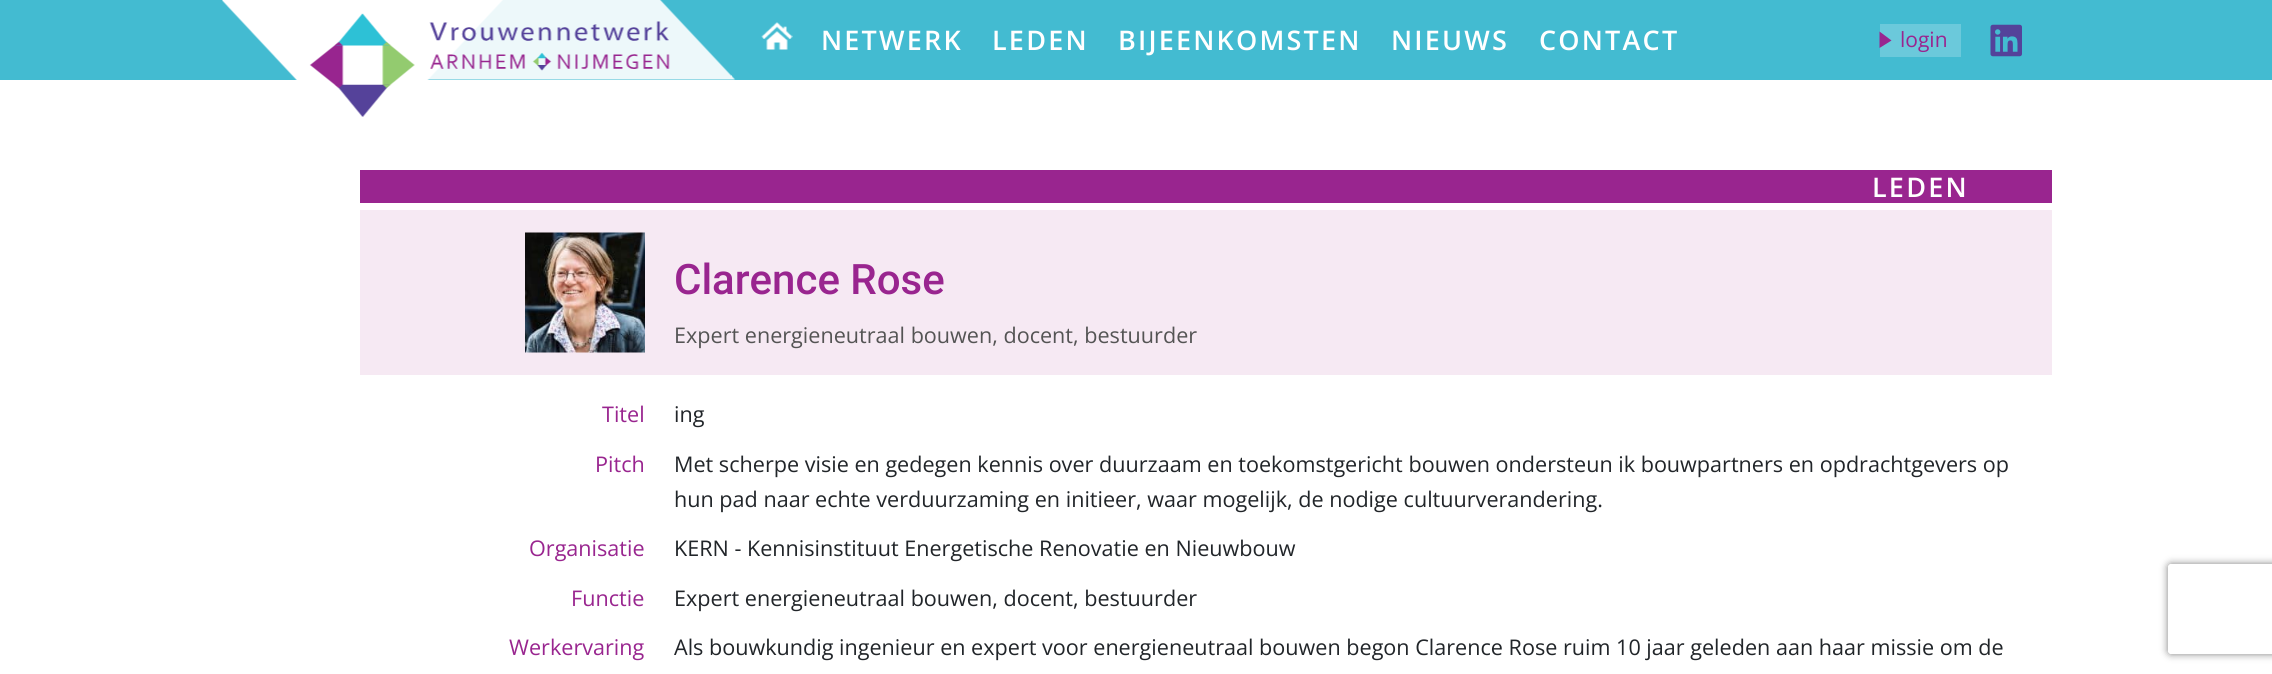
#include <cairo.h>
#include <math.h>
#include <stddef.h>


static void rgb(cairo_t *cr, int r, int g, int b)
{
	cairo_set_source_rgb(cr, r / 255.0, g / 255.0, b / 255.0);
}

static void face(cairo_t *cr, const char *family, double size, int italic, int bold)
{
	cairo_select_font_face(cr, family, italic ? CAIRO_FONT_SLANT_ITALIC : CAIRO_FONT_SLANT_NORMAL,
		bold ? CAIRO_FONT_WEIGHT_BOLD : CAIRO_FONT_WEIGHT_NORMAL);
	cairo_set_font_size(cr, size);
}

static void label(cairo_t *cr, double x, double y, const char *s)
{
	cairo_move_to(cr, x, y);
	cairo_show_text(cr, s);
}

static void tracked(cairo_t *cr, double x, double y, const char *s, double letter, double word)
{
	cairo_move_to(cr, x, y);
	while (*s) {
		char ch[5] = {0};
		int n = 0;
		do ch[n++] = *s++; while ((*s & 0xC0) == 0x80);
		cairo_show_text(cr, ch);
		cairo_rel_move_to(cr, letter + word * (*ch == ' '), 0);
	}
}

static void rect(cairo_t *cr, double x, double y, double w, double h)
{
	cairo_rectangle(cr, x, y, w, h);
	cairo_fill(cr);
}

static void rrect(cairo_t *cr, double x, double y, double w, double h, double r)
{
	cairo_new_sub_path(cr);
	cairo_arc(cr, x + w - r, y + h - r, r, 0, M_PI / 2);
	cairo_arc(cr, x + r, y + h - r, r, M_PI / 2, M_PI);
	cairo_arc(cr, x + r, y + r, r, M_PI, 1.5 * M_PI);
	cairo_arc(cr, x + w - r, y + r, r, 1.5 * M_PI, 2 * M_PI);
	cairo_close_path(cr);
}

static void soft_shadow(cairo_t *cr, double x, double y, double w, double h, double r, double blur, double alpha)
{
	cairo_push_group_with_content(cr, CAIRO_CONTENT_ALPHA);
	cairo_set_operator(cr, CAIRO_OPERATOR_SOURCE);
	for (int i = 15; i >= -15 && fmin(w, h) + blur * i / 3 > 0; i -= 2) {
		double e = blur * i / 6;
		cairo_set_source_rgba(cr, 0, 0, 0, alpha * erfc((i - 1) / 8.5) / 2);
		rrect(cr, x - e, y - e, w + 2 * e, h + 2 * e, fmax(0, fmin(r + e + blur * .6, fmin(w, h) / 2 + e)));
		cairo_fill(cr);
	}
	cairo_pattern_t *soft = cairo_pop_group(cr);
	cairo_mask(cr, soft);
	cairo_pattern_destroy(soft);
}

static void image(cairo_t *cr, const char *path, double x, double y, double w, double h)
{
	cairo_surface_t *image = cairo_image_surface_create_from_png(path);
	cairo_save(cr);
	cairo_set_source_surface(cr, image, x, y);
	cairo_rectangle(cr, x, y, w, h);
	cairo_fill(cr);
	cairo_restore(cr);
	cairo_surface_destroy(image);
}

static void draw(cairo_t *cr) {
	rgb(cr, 255, 255, 255);
	cairo_paint(cr);
	rgb(cr, 67, 187, 209);
	rect(cr, 0, 0, 2272, 80);
	image(cr, "image0.png", 222, 0, 514, 117);
	image(cr, "image1.png", 761, 22, 32, 28);
	face(cr, "Open Sans SemiBold", 27, 0, 0);
	rgb(cr, 255, 255, 255);
	tracked(cr, 821, 50, "NETWERK", 2.2, 0);
	tracked(cr, 992, 50, "LEDEN", 2.2, 0);
	tracked(cr, 1118, 50, "BIJEENKOMSTEN", 2.2, 0);
	tracked(cr, 1391, 50, "NIEUWS", 2.2, 0);
	tracked(cr, 1539, 50, "CONTACT", 2.2, 0);
	rgb(cr, 107, 201, 219);
	rect(cr, 1880, 24, 81, 33);
	rgb(cr, 153, 37, 143);
	cairo_new_path(cr);
	cairo_move_to(cr, 1879.5, 48);
	cairo_line_to(cr, 1879.5, 31.5);
	cairo_line_to(cr, 1891.5, 40.5);
	cairo_close_path(cr);
	cairo_fill(cr);
	face(cr, "Open Sans", 21, 0, 0);
	label(cr, 1900, 47, "login");
	image(cr, "image2.png", 1990, 24, 32, 33);
	rect(cr, 360, 170, 1692, 33);
	face(cr, "Open Sans SemiBold", 27, 0, 0);
	rgb(cr, 255, 255, 255);
	tracked(cr, 1872, 197, "LEDEN", 2.2, 0);
	rgb(cr, 246, 233, 243);
	rect(cr, 360, 210, 1692, 165);
	image(cr, "image3.png", 525, 232, 120, 121);
	face(cr, "Roboto Medium", 42, 0, 0);
	rgb(cr, 153, 37, 143);
	label(cr, 674, 294, "Clarence Rose");
	face(cr, "Open Sans", 21.6, 0, 0);
	rgb(cr, 84, 84, 84);
	label(cr, 674, 343, "Expert energieneutraal bouwen, docent, bestuurder");
	rgb(cr, 153, 37, 143);
	label(cr, 602, 422, "Titel");
	rgb(cr, 33, 37, 41);
	label(cr, 674, 422, "ing");
	rgb(cr, 153, 37, 143);
	label(cr, 595, 472, "Pitch");
	rgb(cr, 33, 37, 41);
	label(cr, 674, 472, "Met scherpe visie en gedegen kennis over duurzaam en toekomstgericht bouwen ondersteun ik bouwpartners en opdrachtgevers op");
	label(cr, 674, 507, "hun pad naar echte verduurzaming en initieer, waar mogelijk, de nodige cultuurverandering.");
	rgb(cr, 153, 37, 143);
	label(cr, 529, 556, "Organisatie");
	rgb(cr, 33, 37, 41);
	label(cr, 674, 556, "KERN - Kennisinstituut Energetische Renovatie en Nieuwbouw");
	rgb(cr, 153, 37, 143);
	label(cr, 571, 606, "Functie");
	rgb(cr, 33, 37, 41);
	label(cr, 674, 606, "Expert energieneutraal bouwen, docent, bestuurder");
	rgb(cr, 153, 37, 143);
	label(cr, 509, 655, "Werkervaring");
	rgb(cr, 33, 37, 41);
	label(cr, 674, 655, "Als bouwkundig ingenieur en expert voor energieneutraal bouwen begon Clarence Rose ruim 10 jaar geleden aan haar missie om de");
	cairo_save(cr);
	cairo_set_fill_rule(cr, CAIRO_FILL_RULE_EVEN_ODD);
	cairo_new_path(cr);
	cairo_move_to(cr, 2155, 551);
	cairo_line_to(cr, 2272, 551);
	cairo_line_to(cr, 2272, 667);
	cairo_line_to(cr, 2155, 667);
	cairo_close_path(cr);
	cairo_move_to(cr, 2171, 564);
	cairo_line_to(cr, 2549, 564);
	cairo_curve_to(cr, 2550.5, 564, 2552, 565.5, 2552, 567);
	cairo_line_to(cr, 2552, 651);
	cairo_curve_to(cr, 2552, 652.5, 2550.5, 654, 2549, 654);
	cairo_line_to(cr, 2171, 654);
	cairo_curve_to(cr, 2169.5, 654, 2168, 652.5, 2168, 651);
	cairo_line_to(cr, 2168, 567);
	cairo_curve_to(cr, 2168, 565.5, 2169.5, 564, 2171, 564);
	cairo_close_path(cr);
	cairo_clip(cr);
	rgb(cr, 128, 128, 128);
	soft_shadow(cr, 2168, 564, 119, 90, 3, 4, 1);
	cairo_restore(cr);
}

int main(void) {
	cairo_surface_t *surface = cairo_image_surface_create(CAIRO_FORMAT_RGB24, 2272, 674);
	cairo_t *cr = cairo_create(surface);
	cairo_font_options_t *options = cairo_font_options_create();
	cairo_font_options_set_hint_metrics(options, CAIRO_HINT_METRICS_OFF);
	cairo_font_options_set_hint_style(options, CAIRO_HINT_STYLE_NONE);
	cairo_set_font_options(cr, options);
	cairo_set_miter_limit(cr, 4);
	draw(cr);
	cairo_surface_write_to_png(surface, "render.png");
	cairo_font_options_destroy(options);
	cairo_destroy(cr);
	cairo_surface_destroy(surface);
	return 0;
}
